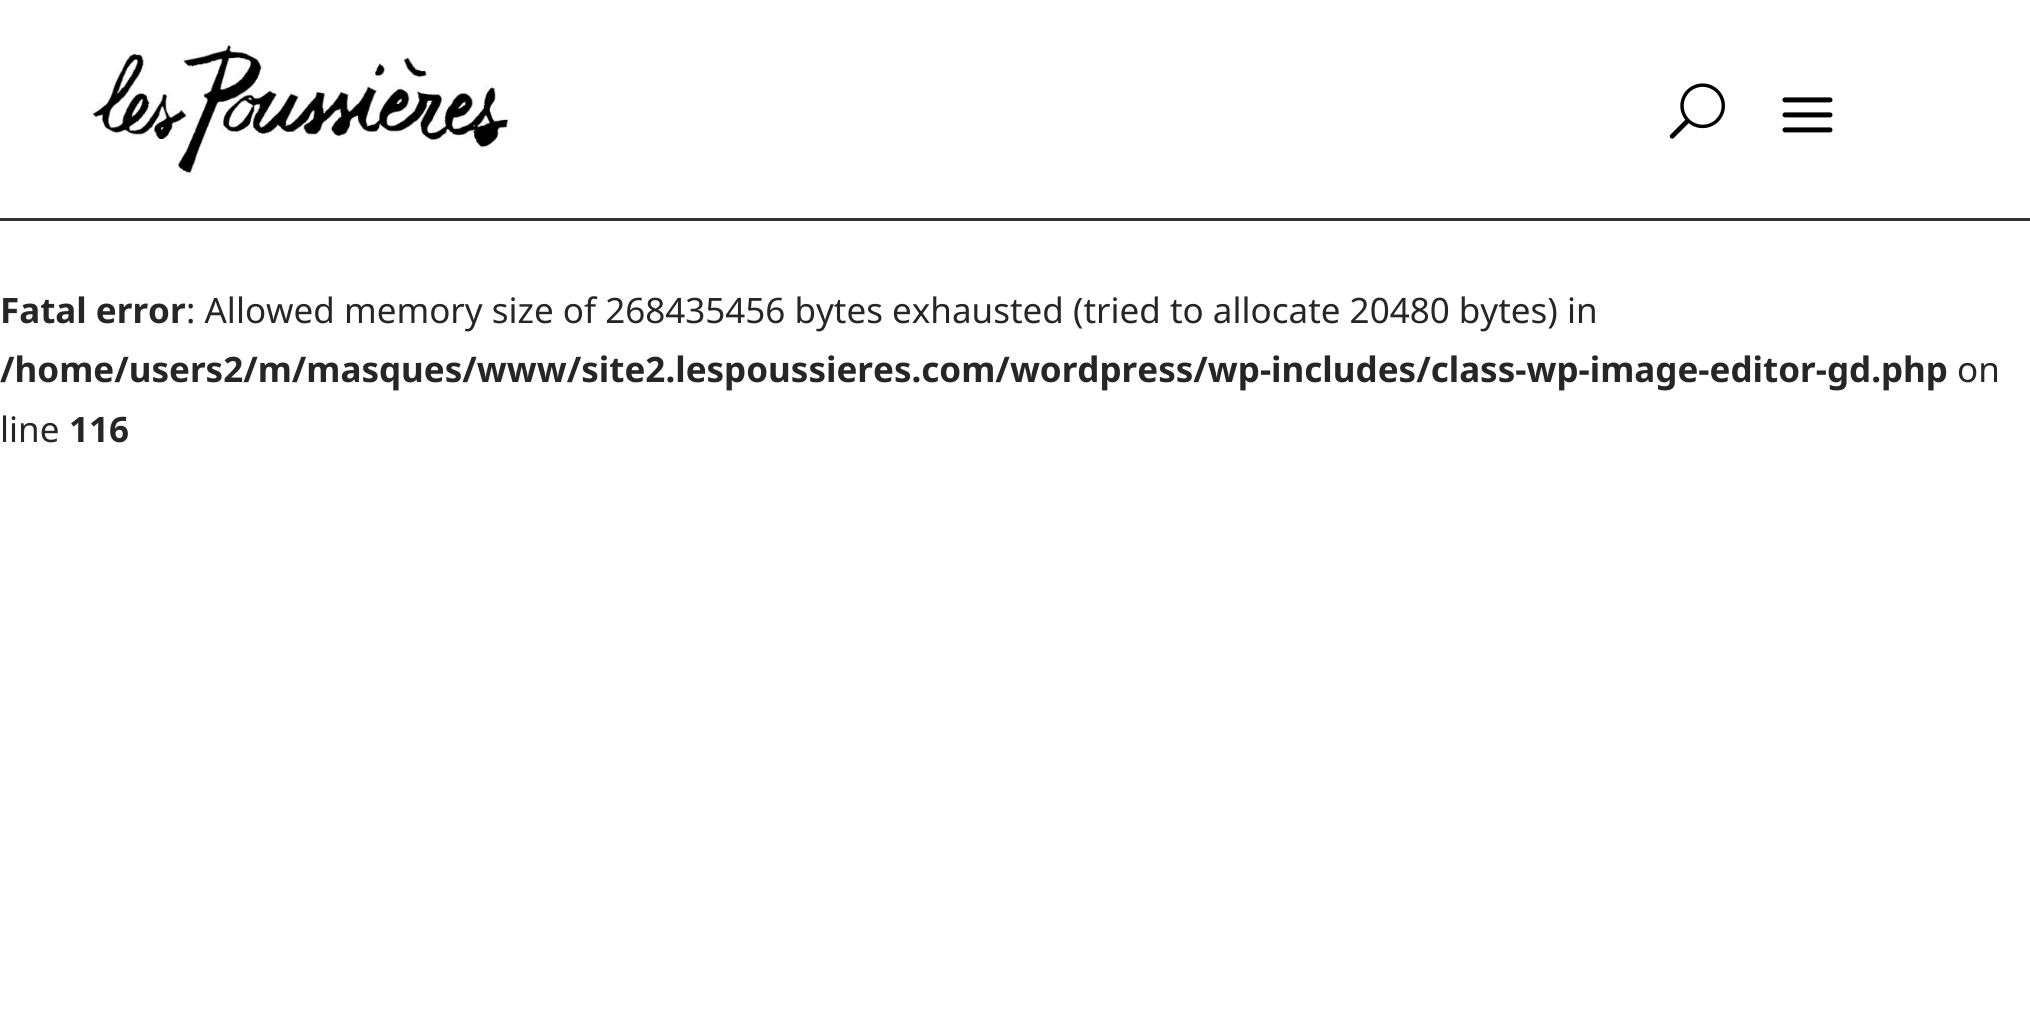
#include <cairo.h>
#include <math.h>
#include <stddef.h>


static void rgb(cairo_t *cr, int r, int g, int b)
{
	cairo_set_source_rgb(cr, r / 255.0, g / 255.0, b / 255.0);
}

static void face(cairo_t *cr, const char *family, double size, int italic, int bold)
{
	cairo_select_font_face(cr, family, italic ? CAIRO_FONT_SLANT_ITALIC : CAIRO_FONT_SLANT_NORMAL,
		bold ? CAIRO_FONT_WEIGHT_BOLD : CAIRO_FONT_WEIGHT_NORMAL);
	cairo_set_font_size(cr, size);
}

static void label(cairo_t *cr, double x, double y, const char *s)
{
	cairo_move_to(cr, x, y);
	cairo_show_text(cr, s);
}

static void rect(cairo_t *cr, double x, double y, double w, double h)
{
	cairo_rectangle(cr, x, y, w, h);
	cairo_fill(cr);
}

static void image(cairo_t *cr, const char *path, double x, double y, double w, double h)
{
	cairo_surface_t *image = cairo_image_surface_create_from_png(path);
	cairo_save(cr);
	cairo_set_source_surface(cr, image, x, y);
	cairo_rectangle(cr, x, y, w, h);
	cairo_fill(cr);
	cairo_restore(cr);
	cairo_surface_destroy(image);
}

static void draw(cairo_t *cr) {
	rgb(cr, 255, 255, 255);
	cairo_paint(cr);
	rgb(cr, 51, 51, 51);
	rect(cr, 0, 218, 2030, 3);
	image(cr, "image0.png", 91, 41, 418, 135);
	image(cr, "image1.png", 1669, 83, 56, 56);
	image(cr, "image2.png", 1782, 97, 51, 36);
	face(cr, "Noto Sans", 35, 0, 1);
	rgb(cr, 38, 38, 38);
	label(cr, 0, 323, "Fatal error");
	face(cr, "Noto Sans", 35, 0, 0);
	label(cr, 186, 323, ": Allowed memory size of 268435456 bytes exhausted (tried to allocate 20480 bytes) in");
	face(cr, "Noto Sans", 35, 0, 1);
	label(cr, 0, 382, "/home/users2/m/masques/www/site2.lespoussieres.com/wordpress/wp-includes/class-wp-image-editor-gd.php");
	face(cr, "Noto Sans", 35, 0, 0);
	label(cr, 1957, 382, "on");
	label(cr, 0, 442, "line");
	face(cr, "Noto Sans", 35, 0, 1);
	label(cr, 69, 442, "116");
}

int main(void) {
	cairo_surface_t *surface = cairo_image_surface_create(CAIRO_FORMAT_RGB24, 2030, 1015);
	cairo_t *cr = cairo_create(surface);
	cairo_font_options_t *options = cairo_font_options_create();
	cairo_font_options_set_hint_metrics(options, CAIRO_HINT_METRICS_OFF);
	cairo_font_options_set_hint_style(options, CAIRO_HINT_STYLE_NONE);
	cairo_set_font_options(cr, options);
	cairo_set_miter_limit(cr, 4);
	draw(cr);
	cairo_surface_write_to_png(surface, "render.png");
	cairo_font_options_destroy(options);
	cairo_destroy(cr);
	cairo_surface_destroy(surface);
	return 0;
}
